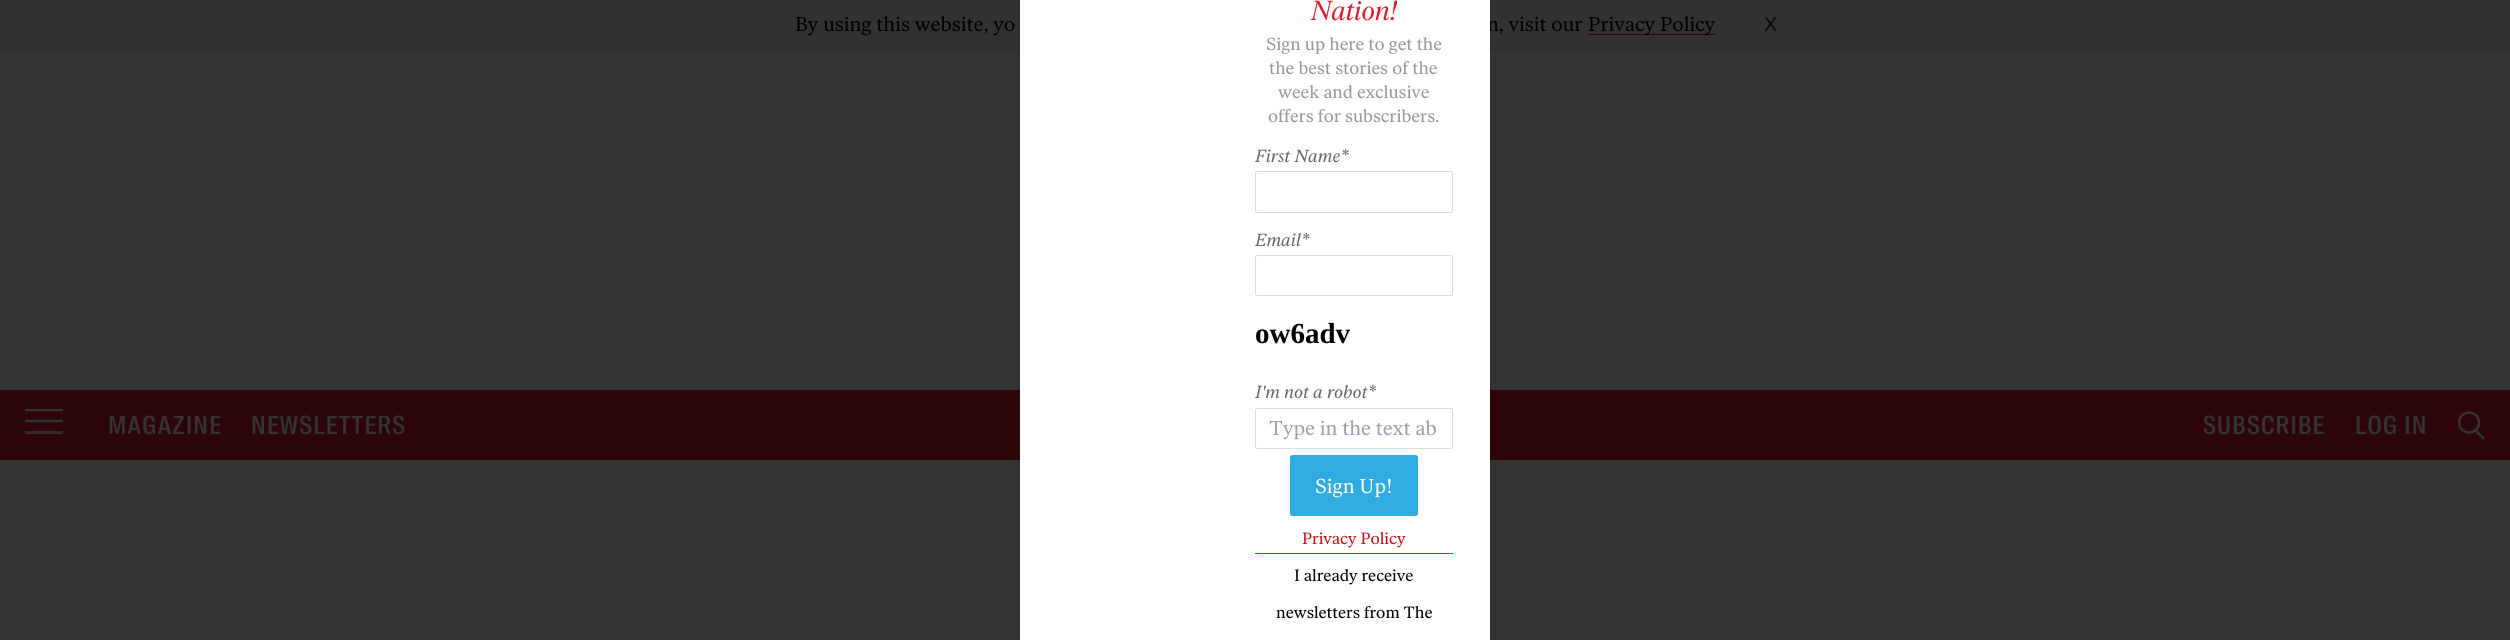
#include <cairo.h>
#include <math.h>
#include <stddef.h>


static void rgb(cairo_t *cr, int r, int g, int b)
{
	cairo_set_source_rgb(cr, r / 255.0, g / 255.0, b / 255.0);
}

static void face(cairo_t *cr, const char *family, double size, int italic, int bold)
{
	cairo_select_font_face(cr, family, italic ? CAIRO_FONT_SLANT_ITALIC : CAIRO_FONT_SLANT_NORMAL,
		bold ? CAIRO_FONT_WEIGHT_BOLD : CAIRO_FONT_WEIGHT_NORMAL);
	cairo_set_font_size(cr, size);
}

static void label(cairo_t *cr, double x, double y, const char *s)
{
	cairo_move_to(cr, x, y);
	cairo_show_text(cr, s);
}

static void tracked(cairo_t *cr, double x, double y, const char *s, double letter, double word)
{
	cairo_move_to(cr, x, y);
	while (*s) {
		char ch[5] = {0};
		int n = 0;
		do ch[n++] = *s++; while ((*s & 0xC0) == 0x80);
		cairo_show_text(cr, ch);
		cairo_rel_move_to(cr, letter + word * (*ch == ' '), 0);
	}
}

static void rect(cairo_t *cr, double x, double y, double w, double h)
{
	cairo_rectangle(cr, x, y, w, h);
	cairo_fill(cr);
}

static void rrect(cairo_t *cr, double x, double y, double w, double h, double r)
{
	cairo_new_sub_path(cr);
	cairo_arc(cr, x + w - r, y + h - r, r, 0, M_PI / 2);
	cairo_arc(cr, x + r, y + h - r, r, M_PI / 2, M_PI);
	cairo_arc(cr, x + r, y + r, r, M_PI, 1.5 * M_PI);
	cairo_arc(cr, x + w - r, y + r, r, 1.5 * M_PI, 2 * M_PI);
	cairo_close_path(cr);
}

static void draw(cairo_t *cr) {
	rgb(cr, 51, 51, 51);
	cairo_paint(cr);
	rgb(cr, 51, 48, 48);
	rect(cr, 0, 0, 2510, 49);
	rgb(cr, 45, 44, 43);
	rect(cr, 0, 49, 2510, 1);
	face(cr, "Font", 20, 0, 0);
	rgb(cr, 0, 0, 0);
	label(cr, 1487, 31, "n, visit our");
	rgb(cr, 46, 5, 9);
	rect(cr, 0, 390, 2510, 70);
	rgb(cr, 255, 255, 255);
	rect(cr, 1020, 0, 470, 640);
	face(cr, "Font", 27.5, 1, 0);
	rgb(cr, 232, 25, 43);
	label(cr, 1311, 20, "Nation!");
	face(cr, "Font", 17.5, 0, 0);
	rgb(cr, 153, 153, 153);
	label(cr, 1266, 50, "Sign up here to get the");
	label(cr, 1269, 74, "the best stories of the");
	label(cr, 1278, 98, "week and exclusive");
	label(cr, 1268, 122, "offers for subscribers.");
	face(cr, "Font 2", 17.5, 1, 0);
	rgb(cr, 102, 102, 102);
	label(cr, 1255, 162, "First Name*");
	rrect(cr, 1255.5, 171.5, 197, 41, 2);
	rgb(cr, 221, 221, 221);
	cairo_set_line_width(cr, 1);
	cairo_stroke(cr);
	rgb(cr, 102, 102, 102);
	label(cr, 1255, 246, "Email*");
	rrect(cr, 1255.5, 255.5, 197, 40, 2);
	rgb(cr, 221, 221, 221);
	cairo_stroke(cr);
	face(cr, "Liberation Serif", 29, 0, 1);
	rgb(cr, 0, 0, 0);
	label(cr, 1255, 343, "ow6adv");
	face(cr, "Font 2", 17.5, 1, 0);
	rgb(cr, 102, 102, 102);
	label(cr, 1255, 398, "I'm not a robot*");
	rrect(cr, 1255.5, 408.5, 197, 40, 2);
	rgb(cr, 221, 221, 221);
	cairo_stroke(cr);
	face(cr, "Font", 20, 0, 0);
	rgb(cr, 156, 163, 175);
	label(cr, 1269, 435, "Type in the text ab");
	rgb(cr, 47, 172, 226);
	rrect(cr, 1290, 455, 128, 61, 2.5);
	cairo_fill(cr);
	rgb(cr, 255, 255, 255);
	label(cr, 1315, 493, "Sign Up!");
	rgb(cr, 232, 25, 43);
	rect(cr, 1255, 553, 198, 1);
	face(cr, "Font", 16.25, 0, 0);
	rgb(cr, 204, 14, 14);
	label(cr, 1302, 544, "Privacy Policy");
	rgb(cr, 0, 0, 0);
	label(cr, 1294, 581, "I already receive");
	label(cr, 1276, 618, "newsletters from The");
	face(cr, "Font", 20, 0, 0);
	label(cr, 795, 31, "By using this website, yo");
	rgb(cr, 46, 5, 9);
	rect(cr, 1588, 34, 127, 1);
	rgb(cr, 0, 0, 0);
	label(cr, 1588, 31, "Privacy Policy");
	face(cr, "Liberation Sans", 20, 0, 0);
	rgb(cr, 7, 7, 7);
	label(cr, 1764, 31, "X");
	cairo_save(cr);
	cairo_rectangle(cr, 25, 409, 38, 37);
	cairo_clip(cr);
	cairo_new_path(cr);
	cairo_move_to(cr, 25, 410);
	cairo_line_to(cr, 69, 410);
	cairo_move_to(cr, 25, 421);
	cairo_line_to(cr, 69, 421);
	rgb(cr, 51, 51, 51);
	cairo_set_line_width(cr, 2.5);
	cairo_stroke(cr);
	cairo_restore(cr);
	rgb(cr, 50, 43, 44);
	rect(cr, 25, 431, 38, 3);
	face(cr, "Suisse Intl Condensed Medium", 25, 0, 0);
	rgb(cr, 51, 51, 51);
	tracked(cr, 108, 434, "MAGAZINE", 1.25, 0);
	tracked(cr, 251, 434, "NEWSLETTERS", 1.25, 0);
	tracked(cr, 2203, 434, "SUBSCRIBE", 1.25, 0);
	tracked(cr, 2355, 434, "LOG IN", 1.25, 0);
	cairo_save(cr);
	cairo_rectangle(cr, 2458, 411, 27, 29);
	cairo_clip(cr);
	cairo_arc(cr, 2469, 422.5, 10, 0, 2 * M_PI);
	cairo_set_line_width(cr, 2.5);
	cairo_stroke(cr);
	cairo_restore(cr);
	cairo_new_path(cr);
	cairo_move_to(cr, 2475, 430);
	cairo_line_to(cr, 2484, 439);
	cairo_set_line_width(cr, 2.5);
	cairo_stroke(cr);
}

int main(void) {
	cairo_surface_t *surface = cairo_image_surface_create(CAIRO_FORMAT_RGB24, 2510, 640);
	cairo_t *cr = cairo_create(surface);
	cairo_font_options_t *options = cairo_font_options_create();
	cairo_font_options_set_hint_metrics(options, CAIRO_HINT_METRICS_OFF);
	cairo_font_options_set_hint_style(options, CAIRO_HINT_STYLE_NONE);
	cairo_set_font_options(cr, options);
	cairo_set_miter_limit(cr, 4);
	draw(cr);
	cairo_surface_write_to_png(surface, "render.png");
	cairo_font_options_destroy(options);
	cairo_destroy(cr);
	cairo_surface_destroy(surface);
	return 0;
}
